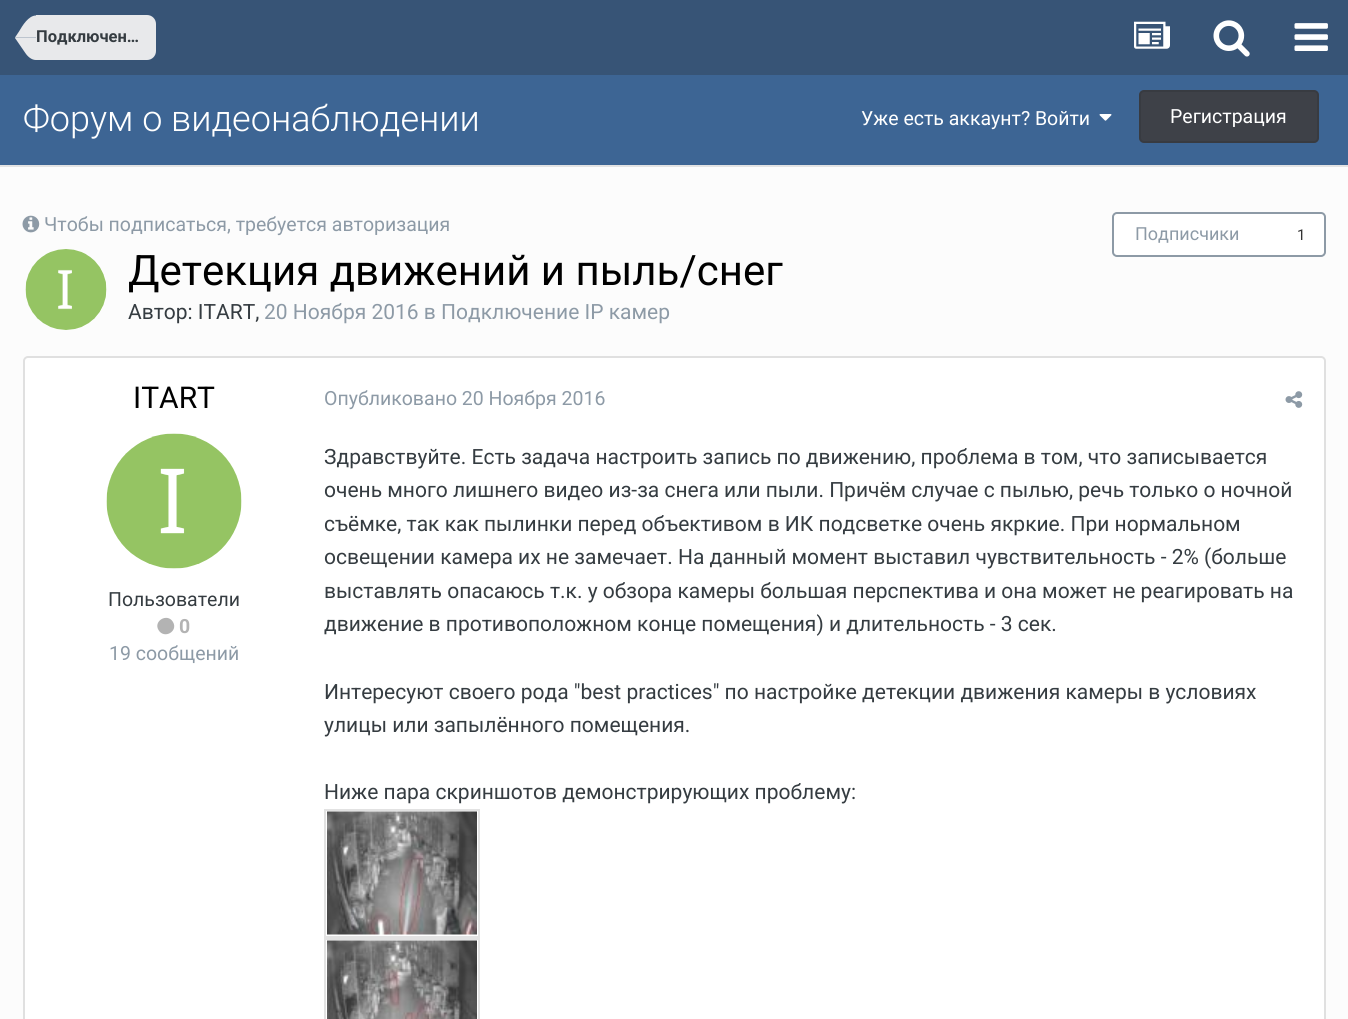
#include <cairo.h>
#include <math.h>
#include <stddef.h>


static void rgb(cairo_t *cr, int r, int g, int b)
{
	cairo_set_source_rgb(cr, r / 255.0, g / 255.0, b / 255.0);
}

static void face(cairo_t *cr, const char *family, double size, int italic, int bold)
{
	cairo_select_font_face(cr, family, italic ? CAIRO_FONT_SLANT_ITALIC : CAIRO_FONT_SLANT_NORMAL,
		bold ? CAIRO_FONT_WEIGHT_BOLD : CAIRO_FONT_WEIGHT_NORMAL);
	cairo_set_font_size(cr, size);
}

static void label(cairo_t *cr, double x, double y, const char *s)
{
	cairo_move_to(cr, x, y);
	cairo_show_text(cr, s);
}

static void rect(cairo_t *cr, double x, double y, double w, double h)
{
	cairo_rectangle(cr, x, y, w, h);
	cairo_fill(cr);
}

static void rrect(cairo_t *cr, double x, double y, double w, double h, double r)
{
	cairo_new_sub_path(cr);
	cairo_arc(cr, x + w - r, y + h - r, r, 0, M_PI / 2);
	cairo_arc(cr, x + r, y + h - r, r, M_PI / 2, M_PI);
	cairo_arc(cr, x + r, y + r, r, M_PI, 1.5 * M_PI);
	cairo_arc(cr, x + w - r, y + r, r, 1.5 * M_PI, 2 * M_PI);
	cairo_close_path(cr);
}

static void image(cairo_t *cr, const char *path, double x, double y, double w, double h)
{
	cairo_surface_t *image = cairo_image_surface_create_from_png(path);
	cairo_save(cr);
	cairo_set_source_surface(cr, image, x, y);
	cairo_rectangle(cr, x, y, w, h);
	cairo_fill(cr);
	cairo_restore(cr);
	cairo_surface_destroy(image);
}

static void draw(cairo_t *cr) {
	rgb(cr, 252, 252, 252);
	cairo_paint(cr);
	rgb(cr, 227, 227, 227);
	rect(cr, 0, 165, 1348, 2);
	rgb(cr, 55, 84, 118);
	rect(cr, 0, 0, 1348, 75);
	rgb(cr, 232, 233, 235);
	cairo_new_path(cr);
	cairo_move_to(cr, 36, 15);
	cairo_line_to(cr, 147, 15);
	cairo_curve_to(cr, 152, 15, 156, 19, 156, 24);
	cairo_line_to(cr, 156, 51);
	cairo_curve_to(cr, 156, 56, 152, 60, 147, 60);
	cairo_line_to(cr, 36, 60);
	cairo_close_path(cr);
	cairo_fill(cr);
	cairo_new_path(cr);
	cairo_move_to(cr, 15, 37.5);
	cairo_line_to(cr, 36, 37.5);
	cairo_line_to(cr, 36, 60);
	cairo_curve_to(cr, 33, 60, 29.5, 58.5, 26, 54);
	cairo_line_to(cr, 15, 38);
	cairo_close_path(cr);
	cairo_fill(cr);
	cairo_new_path(cr);
	cairo_move_to(cr, 36, 15.5);
	cairo_line_to(cr, 36, 37.5);
	cairo_line_to(cr, 15, 37.5);
	cairo_line_to(cr, 19, 31.5);
	cairo_curve_to(cr, 22.5, 25.5, 28.5, 15.5, 36, 15.5);
	cairo_close_path(cr);
	cairo_fill(cr);
	face(cr, "Roboto", 16.5, 0, 1);
	rgb(cr, 53, 60, 65);
	label(cr, 36, 42, "Подключен…");
	image(cr, "image0.png", 1134, 21, 36, 28);
	image(cr, "image1.png", 1213, 20, 37, 37);
	image(cr, "image2.png", 1294, 23, 34, 28);
	rgb(cr, 61, 101, 148);
	rect(cr, 0, 75, 1348, 90);
	face(cr, "Roboto Light", 36, 0, 0);
	rgb(cr, 255, 255, 255);
	label(cr, 23, 131, "Форум о видеонаблюдении");
	face(cr, "Roboto", 19.5, 0, 0);
	label(cr, 861, 125, "Уже есть аккаунт? Войти");
	image(cr, "image3.png", 1099, 114, 13, 7);
	rgb(cr, 62, 65, 72);
	rrect(cr, 1139, 90, 180, 53, 5);
	cairo_fill(cr);
	rrect(cr, 1140, 91, 178, 51, 4);
	cairo_set_source_rgba(cr, 0, 0, 0, 0.1);
	cairo_stroke(cr);
	rgb(cr, 255, 255, 255);
	label(cr, 1170, 123, "Регистрация");
	image(cr, "image4.png", 22, 215, 18, 18);
	rgb(cr, 141, 154, 166);
	label(cr, 44, 231, "Чтобы подписаться, требуется авторизация");
	rgb(cr, 255, 255, 255);
	rrect(cr, 1113, 213, 212, 43, 4);
	cairo_fill_preserve(cr);
	rgb(cr, 141, 154, 166);
	cairo_stroke(cr);
	face(cr, "Roboto", 18, 0, 0);
	label(cr, 1135, 240, "Подписчики");
	face(cr, "Roboto", 15, 0, 0);
	rgb(cr, 51, 51, 51);
	label(cr, 1297, 240, "1");
	rgb(cr, 255, 255, 255);
	cairo_new_path(cr);
	cairo_arc(cr, 66.5, 289.5, 40.5, 0, 2 * M_PI);
	cairo_fill(cr);
	image(cr, "image5.png", 25, 249, 82, 81);
	face(cr, "Roboto", 42, 0, 0);
	rgb(cr, 0, 0, 0);
	label(cr, 128, 285, "Детекция движений и пыль/снег");
	face(cr, "Roboto", 21, 0, 0);
	rgb(cr, 53, 60, 65);
	label(cr, 128, 319, "Автор: ITART,");
	rgb(cr, 141, 154, 166);
	label(cr, 264, 319, "20 Ноября 2016 в Подключение IP камер");
	rgb(cr, 255, 255, 255);
	rrect(cr, 24, 357, 1301, 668, 4);
	cairo_fill_preserve(cr);
	rgb(cr, 224, 224, 224);
	cairo_stroke(cr);
	face(cr, "Roboto", 30, 0, 0);
	rgb(cr, 0, 0, 0);
	label(cr, 133, 408, "ITART");
	image(cr, "image6.png", 106, 433, 136, 136);
	face(cr, "Roboto", 19.5, 0, 0);
	rgb(cr, 53, 60, 65);
	label(cr, 108, 606, "Пользователи");
	rgb(cr, 179, 179, 179);
	cairo_new_path(cr);
	cairo_move_to(cr, 173, 622);
	cairo_curve_to(cr, 178.5, 631.5, 164, 639.5, 158.5, 630);
	cairo_curve_to(cr, 153, 621, 167.5, 612.5, 173, 622);
	cairo_close_path(cr);
	cairo_fill(cr);
	face(cr, "Roboto", 19.5, 0, 1);
	label(cr, 179, 633, "0");
	face(cr, "Roboto", 19.5, 0, 0);
	rgb(cr, 141, 154, 166);
	label(cr, 109, 660, "19 сообщений");
	label(cr, 324, 405, "Опубликовано 20 Ноября 2016");
	image(cr, "image7.png", 1285, 391, 18, 17);
	face(cr, "Roboto", 21, 0, 0);
	rgb(cr, 53, 60, 65);
	label(cr, 324, 464, "Здравствуйте. Есть задача настроить запись по движению, проблема в том, что записывается");
	label(cr, 324, 497, "очень много лишнего видео из-за снега или пыли. Причём случае с пылью, речь только о ночной");
	label(cr, 324, 531, "съёмке, так как пылинки перед объективом в ИК подсветке очень якркие. При нормальном");
	label(cr, 324, 564, "освещении камера их не замечает. На данный момент выставил чувствительность - 2% (больше");
	label(cr, 324, 598, "выставлять опасаюсь т.к. у обзора камеры большая перспектива и она может не реагировать на");
	label(cr, 324, 631, "движение в противоположном конце помещения) и длительность - 3 сек.");
	label(cr, 324, 699, "Интересуют своего рода \"best practices\" по настройке детекции движения камеры в условиях");
	label(cr, 324, 732, "улицы или запылённого помещения.");
	label(cr, 324, 799, "Ниже пара скриншотов демонстрирующих проблему:");
	cairo_rectangle(cr, 325, 810, 154, 127);
	rgb(cr, 226, 226, 226);
	cairo_stroke(cr);
	image(cr, "image8.png", 327, 811, 150, 124);
	cairo_rectangle(cr, 325, 939, 154, 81);
	cairo_stroke(cr);
	image(cr, "image9.png", 327, 940, 150, 79);
}

int main(void) {
	cairo_surface_t *surface = cairo_image_surface_create(CAIRO_FORMAT_RGB24, 1348, 1019);
	cairo_t *cr = cairo_create(surface);
	cairo_font_options_t *options = cairo_font_options_create();
	cairo_font_options_set_hint_metrics(options, CAIRO_HINT_METRICS_OFF);
	cairo_font_options_set_hint_style(options, CAIRO_HINT_STYLE_NONE);
	cairo_set_font_options(cr, options);
	cairo_set_miter_limit(cr, 4);
	draw(cr);
	cairo_surface_write_to_png(surface, "render.png");
	cairo_font_options_destroy(options);
	cairo_destroy(cr);
	cairo_surface_destroy(surface);
	return 0;
}
